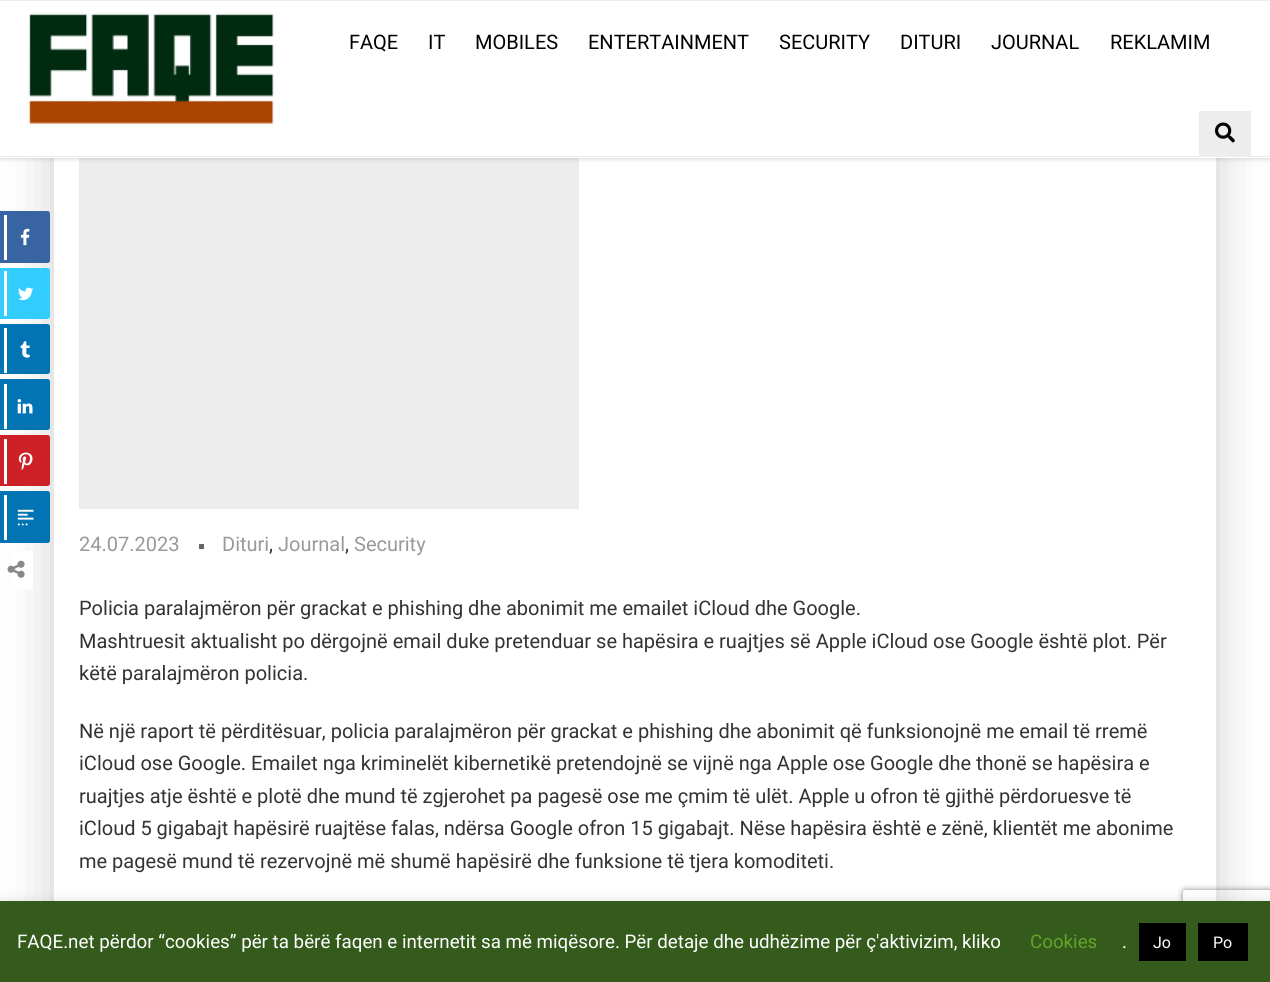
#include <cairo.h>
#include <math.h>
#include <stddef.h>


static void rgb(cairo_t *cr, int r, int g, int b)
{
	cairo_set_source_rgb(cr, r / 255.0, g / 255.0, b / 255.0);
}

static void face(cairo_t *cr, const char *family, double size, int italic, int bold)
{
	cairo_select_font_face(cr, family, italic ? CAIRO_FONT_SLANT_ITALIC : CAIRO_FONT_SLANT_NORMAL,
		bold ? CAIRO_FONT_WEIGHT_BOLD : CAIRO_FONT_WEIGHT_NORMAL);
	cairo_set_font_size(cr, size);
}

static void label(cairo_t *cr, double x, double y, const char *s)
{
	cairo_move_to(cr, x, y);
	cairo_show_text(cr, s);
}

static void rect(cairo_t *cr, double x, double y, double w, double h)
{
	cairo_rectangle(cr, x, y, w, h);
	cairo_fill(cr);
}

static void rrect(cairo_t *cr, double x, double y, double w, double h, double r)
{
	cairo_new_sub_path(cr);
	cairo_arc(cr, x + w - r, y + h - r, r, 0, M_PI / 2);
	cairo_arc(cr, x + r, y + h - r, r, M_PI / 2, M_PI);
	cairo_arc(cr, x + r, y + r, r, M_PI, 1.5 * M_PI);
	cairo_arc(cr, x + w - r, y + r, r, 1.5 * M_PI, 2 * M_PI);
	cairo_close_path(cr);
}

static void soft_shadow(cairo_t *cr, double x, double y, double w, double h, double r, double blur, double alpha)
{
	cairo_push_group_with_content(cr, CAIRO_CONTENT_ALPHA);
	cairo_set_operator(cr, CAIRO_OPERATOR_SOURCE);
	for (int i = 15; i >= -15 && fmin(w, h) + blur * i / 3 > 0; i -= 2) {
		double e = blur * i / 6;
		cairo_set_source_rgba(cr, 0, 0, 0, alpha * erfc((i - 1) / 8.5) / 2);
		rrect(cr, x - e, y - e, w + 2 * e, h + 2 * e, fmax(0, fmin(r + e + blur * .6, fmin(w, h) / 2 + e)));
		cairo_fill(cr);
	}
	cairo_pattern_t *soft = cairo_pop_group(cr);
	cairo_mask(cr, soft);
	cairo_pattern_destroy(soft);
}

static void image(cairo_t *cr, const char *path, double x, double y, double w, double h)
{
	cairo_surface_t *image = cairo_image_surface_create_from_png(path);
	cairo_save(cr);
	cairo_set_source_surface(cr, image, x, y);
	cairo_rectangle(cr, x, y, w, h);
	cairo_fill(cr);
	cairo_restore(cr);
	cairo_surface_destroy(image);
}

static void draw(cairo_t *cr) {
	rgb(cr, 255, 255, 255);
	cairo_paint(cr);
	cairo_save(cr);
	cairo_set_fill_rule(cr, CAIRO_FILL_RULE_EVEN_ODD);
	cairo_new_path(cr);
	cairo_move_to(cr, 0, 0);
	cairo_line_to(cr, 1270, 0);
	cairo_line_to(cr, 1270, 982);
	cairo_line_to(cr, 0, 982);
	cairo_close_path(cr);
	cairo_move_to(cr, 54, -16);
	cairo_line_to(cr, 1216, -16);
	cairo_line_to(cr, 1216, 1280);
	cairo_line_to(cr, 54, 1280);
	cairo_close_path(cr);
	cairo_clip(cr);
	rgb(cr, 0, 0, 0);
	soft_shadow(cr, 54, -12, 1162, 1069, 0, 25, 0.2);
	cairo_restore(cr);
	rgb(cr, 56, 100, 163);
	rrect(cr, -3, 211, 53, 52, 2.5);
	cairo_fill(cr);
	rgb(cr, 255, 255, 255);
	rect(cr, 4, 215, 3, 45);
	image(cr, "image0.png", 20, 228, 10, 18);
	rgb(cr, 51, 204, 255);
	rrect(cr, -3, 268, 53, 51, 2.5);
	cairo_fill(cr);
	rgb(cr, 255, 255, 255);
	rect(cr, 4, 271, 3, 45);
	image(cr, "image1.png", 18, 287, 16, 14);
	rgb(cr, 2, 116, 179);
	rrect(cr, -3, 324, 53, 50, 2.5);
	cairo_fill(cr);
	rgb(cr, 255, 255, 255);
	rect(cr, 4, 328, 3, 45);
	image(cr, "image2.png", 20, 341, 10, 17);
	rgb(cr, 2, 116, 179);
	rrect(cr, -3, 379, 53, 51, 2.5);
	cairo_fill(cr);
	rgb(cr, 255, 255, 255);
	rect(cr, 4, 384, 3, 45);
	image(cr, "image3.png", 17, 399, 16, 15);
	rgb(cr, 206, 33, 39);
	rrect(cr, -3, 435, 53, 51, 2.5);
	cairo_fill(cr);
	rgb(cr, 255, 255, 255);
	rect(cr, 4, 439, 3, 45);
	image(cr, "image4.png", 18, 452, 15, 18);
	rgb(cr, 2, 116, 179);
	rrect(cr, -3, 491, 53, 52, 2.5);
	cairo_fill(cr);
	rgb(cr, 255, 255, 255);
	rect(cr, 4, 495, 3, 45);
	image(cr, "image5.png", 17, 509, 17, 17);
	rect(cr, 13, 551, 20, 38);
	image(cr, "image6.png", 7, 560, 18, 18);
	rgb(cr, 237, 237, 237);
	rect(cr, 79, 158, 500, 351);
	rgb(cr, 2, 3, 3);
	soft_shadow(cr, 0, 1, 1270, 158, 0, 2.5, 0.15);
	rgb(cr, 255, 255, 255);
	rect(cr, 0, 1, 1270, 157);
	rgb(cr, 237, 237, 237);
	rect(cr, 0, 0, 1270, 1);
	rect(cr, 0, 156, 1270, 1);
	image(cr, "image7.png", 28, 13, 246, 111);
	face(cr, "Roboto", 20, 0, 0);
	rgb(cr, 0, 0, 0);
	label(cr, 349, 49, "FAQE");
	label(cr, 428, 49, "IT");
	label(cr, 475, 49, "MOBILES");
	label(cr, 588, 49, "ENTERTAINMENT");
	label(cr, 779, 49, "SECURITY");
	label(cr, 900, 49, "DITURI");
	label(cr, 991, 49, "JOURNAL");
	label(cr, 1110, 49, "REKLAMIM");
	rgb(cr, 237, 237, 237);
	rect(cr, 1199, 111, 52, 45);
	image(cr, "image8.png", 1215, 122, 20, 21);
	rgb(cr, 153, 153, 153);
	label(cr, 79, 551, "24.07.2023");
	rgb(cr, 102, 102, 102);
	rect(cr, 199, 544, 5, 5);
	rgb(cr, 153, 153, 153);
	label(cr, 222, 551, "Dituri");
	rgb(cr, 51, 51, 51);
	label(cr, 269, 551, ",");
	rgb(cr, 153, 153, 153);
	label(cr, 278, 551, "Journal");
	rgb(cr, 51, 51, 51);
	label(cr, 345, 551, ",");
	rgb(cr, 153, 153, 153);
	label(cr, 354, 551, "Security");
	rgb(cr, 51, 51, 51);
	label(cr, 79, 615, "Policia paralajmëron për grackat e phishing dhe abonimit me emailet iCloud dhe Google.");
	label(cr, 79, 648, "Mashtruesit aktualisht po dërgojnë email duke pretenduar se hapësira e ruajtjes së Apple iCloud ose Google është plot. Për");
	label(cr, 79, 680, "këtë paralajmëron policia.");
	label(cr, 79, 738, "Në një raport të përditësuar, policia paralajmëron për grackat e phishing dhe abonimit që funksionojnë me email të rremë");
	label(cr, 79, 770, "iCloud ose Google. Emailet nga kriminelët kibernetikë pretendojnë se vijnë nga Apple ose Google dhe thonë se hapësira e");
	label(cr, 79, 803, "ruajtjes atje është e plotë dhe mund të zgjerohet pa pagesë ose me çmim të ulët. Apple u ofron të gjithë përdoruesve të");
	label(cr, 79, 835, "iCloud 5 gigabajt hapësirë ruajtëse falas, ndërsa Google ofron 15 gigabajt. Nëse hapësira është e zënë, klientët me abonime");
	label(cr, 79, 868, "me pagesë mund të rezervojnë më shumë hapësirë dhe funksione të tjera komoditeti.");
	cairo_save(cr);
	cairo_set_fill_rule(cr, CAIRO_FILL_RULE_EVEN_ODD);
	cairo_new_path(cr);
	cairo_move_to(cr, 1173, 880);
	cairo_line_to(cr, 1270, 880);
	cairo_line_to(cr, 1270, 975);
	cairo_line_to(cr, 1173, 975);
	cairo_close_path(cr);
	cairo_move_to(cr, 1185.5, 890);
	cairo_line_to(cr, 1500.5, 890);
	cairo_curve_to(cr, 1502, 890, 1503, 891, 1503, 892.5);
	cairo_line_to(cr, 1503, 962.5);
	cairo_curve_to(cr, 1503, 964, 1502, 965, 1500.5, 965);
	cairo_line_to(cr, 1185.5, 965);
	cairo_curve_to(cr, 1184, 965, 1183, 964, 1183, 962.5);
	cairo_line_to(cr, 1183, 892.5);
	cairo_curve_to(cr, 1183, 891, 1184, 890, 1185.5, 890);
	cairo_close_path(cr);
	cairo_clip(cr);
	rgb(cr, 128, 128, 128);
	soft_shadow(cr, 1183, 890, 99, 75, 2.5, 3, 1);
	cairo_restore(cr);
	rgb(cr, 172, 171, 171);
	soft_shadow(cr, 0, 900, 1270, 81, 0, 6, 0.3);
	rgb(cr, 52, 91, 28);
	rect(cr, 0, 901, 1270, 81);
	face(cr, "Roboto", 18.75, 0, 0);
	rgb(cr, 255, 255, 255);
	label(cr, 17, 948, "FAQE.net përdor “cookies” për ta bërë faqen e internetit sa më miqësore. Për detaje dhe udhëzime për ç'aktivizim, kliko");
	rgb(cr, 98, 163, 41);
	label(cr, 1030, 948, "Cookies");
	rgb(cr, 255, 255, 255);
	label(cr, 1122, 948, ".");
	rgb(cr, 0, 0, 0);
	rect(cr, 1139, 923, 47, 38);
	face(cr, "Roboto", 16, 0, 0);
	rgb(cr, 255, 255, 255);
	label(cr, 1153, 948, "Jo");
	rgb(cr, 0, 0, 0);
	rect(cr, 1198, 923, 50, 38);
	rgb(cr, 255, 255, 255);
	label(cr, 1213, 948, "Po");
}

int main(void) {
	cairo_surface_t *surface = cairo_image_surface_create(CAIRO_FORMAT_RGB24, 1270, 982);
	cairo_t *cr = cairo_create(surface);
	cairo_font_options_t *options = cairo_font_options_create();
	cairo_font_options_set_hint_metrics(options, CAIRO_HINT_METRICS_OFF);
	cairo_font_options_set_hint_style(options, CAIRO_HINT_STYLE_NONE);
	cairo_set_font_options(cr, options);
	cairo_set_miter_limit(cr, 4);
	draw(cr);
	cairo_surface_write_to_png(surface, "render.png");
	cairo_font_options_destroy(options);
	cairo_destroy(cr);
	cairo_surface_destroy(surface);
	return 0;
}
